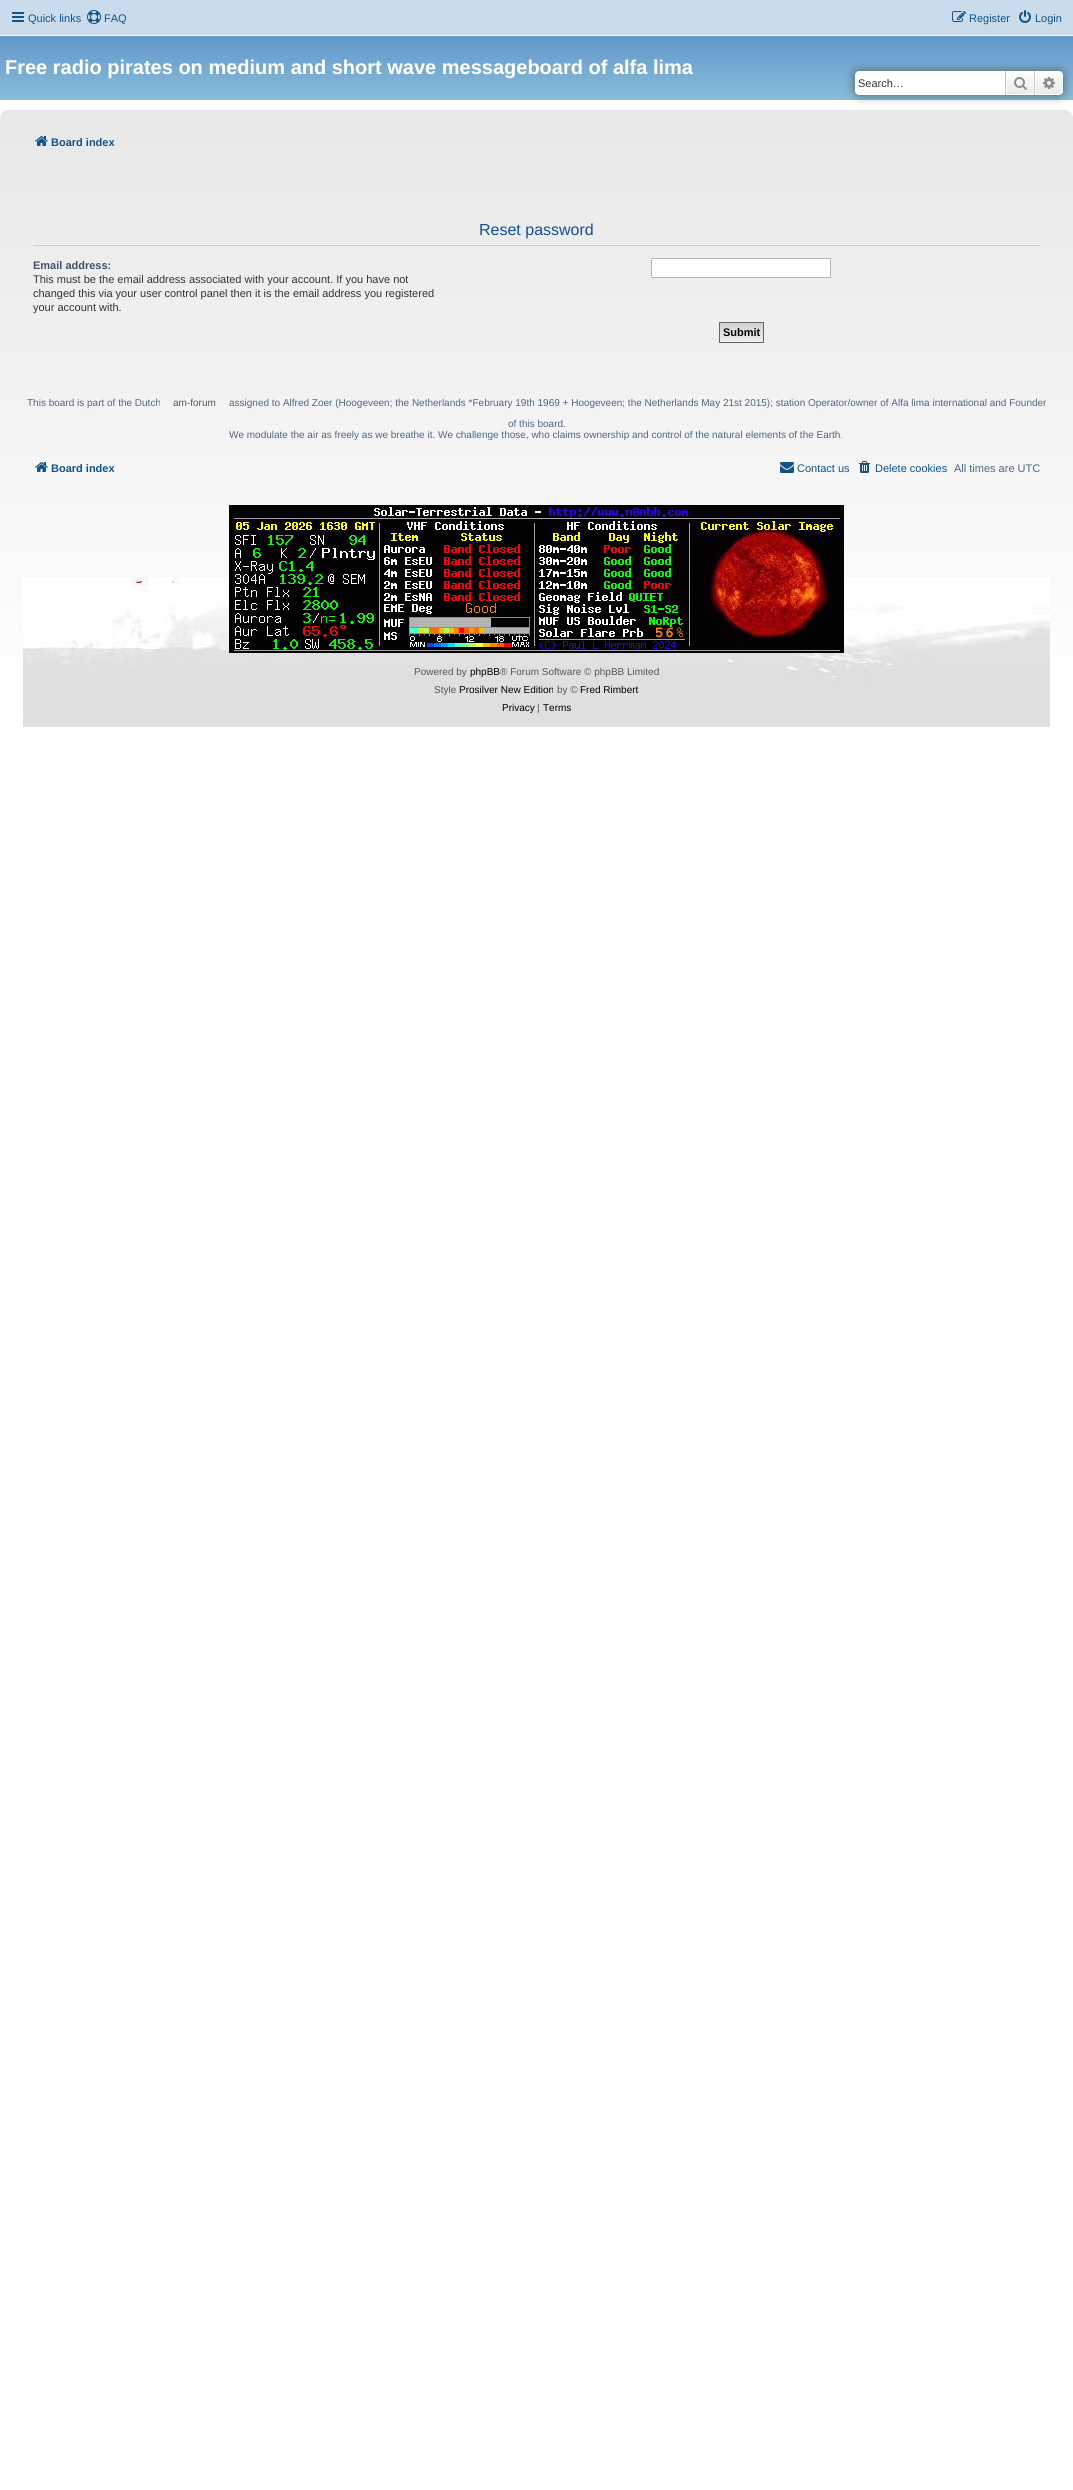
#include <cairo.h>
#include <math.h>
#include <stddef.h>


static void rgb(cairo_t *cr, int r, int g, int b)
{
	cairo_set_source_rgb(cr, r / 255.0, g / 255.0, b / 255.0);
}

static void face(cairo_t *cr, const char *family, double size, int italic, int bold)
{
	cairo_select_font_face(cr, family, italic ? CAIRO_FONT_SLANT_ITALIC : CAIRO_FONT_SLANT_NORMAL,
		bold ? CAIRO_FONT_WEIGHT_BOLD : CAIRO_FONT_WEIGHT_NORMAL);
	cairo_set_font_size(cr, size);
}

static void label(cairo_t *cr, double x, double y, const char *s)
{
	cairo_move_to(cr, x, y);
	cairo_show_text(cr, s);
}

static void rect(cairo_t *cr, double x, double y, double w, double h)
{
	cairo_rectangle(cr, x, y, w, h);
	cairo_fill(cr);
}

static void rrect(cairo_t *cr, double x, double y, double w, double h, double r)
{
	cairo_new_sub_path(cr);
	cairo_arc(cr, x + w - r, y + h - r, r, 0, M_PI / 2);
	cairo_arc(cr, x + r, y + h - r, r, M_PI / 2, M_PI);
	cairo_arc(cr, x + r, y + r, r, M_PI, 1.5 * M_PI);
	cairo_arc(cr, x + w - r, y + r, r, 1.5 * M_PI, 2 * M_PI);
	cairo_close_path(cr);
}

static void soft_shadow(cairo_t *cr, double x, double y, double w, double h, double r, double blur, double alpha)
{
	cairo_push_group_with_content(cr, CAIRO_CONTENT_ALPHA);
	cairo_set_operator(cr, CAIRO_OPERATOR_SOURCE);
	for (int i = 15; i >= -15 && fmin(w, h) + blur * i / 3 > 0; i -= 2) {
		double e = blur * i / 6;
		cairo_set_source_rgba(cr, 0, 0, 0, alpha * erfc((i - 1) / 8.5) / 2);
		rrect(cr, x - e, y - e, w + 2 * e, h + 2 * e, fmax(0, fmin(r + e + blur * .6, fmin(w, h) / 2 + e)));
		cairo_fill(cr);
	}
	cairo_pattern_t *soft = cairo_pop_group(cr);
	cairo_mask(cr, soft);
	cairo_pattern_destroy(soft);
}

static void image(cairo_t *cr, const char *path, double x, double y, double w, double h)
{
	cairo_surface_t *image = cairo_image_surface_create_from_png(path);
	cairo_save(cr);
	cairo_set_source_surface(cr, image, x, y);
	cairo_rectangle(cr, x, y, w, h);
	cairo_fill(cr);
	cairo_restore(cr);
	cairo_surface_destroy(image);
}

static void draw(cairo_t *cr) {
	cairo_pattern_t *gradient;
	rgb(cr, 255, 255, 255);
	cairo_paint(cr);
	rgb(cr, 202, 220, 235);
	rect(cr, 0, 0, 1073, 35);
	image(cr, "image0.png", 12, 12, 12, 10);
	face(cr, "Liberation Sans", 11, 0, 0);
	rgb(cr, 16, 82, 137);
	label(cr, 28, 22, "Quick links");
	image(cr, "image1.png", 87, 10, 14, 14);
	label(cr, 104, 22, "FAQ");
	image(cr, "image2.png", 952, 11, 14, 11);
	label(cr, 969, 22, "Register");
	image(cr, "image3.png", 1019, 10, 12, 13);
	label(cr, 1035, 22, "Login");
	gradient = cairo_pattern_create_linear(537, 36, 537, 100);
	cairo_pattern_add_color_stop_rgba(gradient, 0.03, 0.4, 0.6, 0.8, 1);
	cairo_pattern_add_color_stop_rgba(gradient, 1, 0.529, 0.741, 0.847, 1);
	cairo_set_source(cr, gradient);
	cairo_pattern_destroy(gradient);
	rect(cr, 0, 36, 1073, 64);
	face(cr, "Liberation Sans", 20, 0, 1);
	rgb(cr, 255, 255, 255);
	label(cr, 5, 74, "Free radio pirates on medium and short wave messageboard of alfa lima");
	gradient = cairo_pattern_create_linear(537, 110, 537, 720);
	cairo_pattern_add_color_stop_rgba(gradient, 0.03, 0.91, 0.91, 0.91, 1);
	cairo_pattern_add_color_stop_rgba(gradient, 1, 1, 1, 1, 1);
	cairo_set_source(cr, gradient);
	cairo_pattern_destroy(gradient);
	rrect(cr, 0, 110, 1073, 610, 8);
	cairo_fill(cr);
	rgb(cr, 80, 92, 101);
	soft_shadow(cr, 855, 71, 208, 24, 4, 5, 1);
	rgb(cr, 255, 255, 255);
	cairo_new_path(cr);
	cairo_move_to(cr, 859, 71);
	cairo_line_to(cr, 1005, 71);
	cairo_line_to(cr, 1005, 95);
	cairo_line_to(cr, 859, 95);
	cairo_curve_to(cr, 857, 95, 855, 93, 855, 91);
	cairo_line_to(cr, 855, 75);
	cairo_curve_to(cr, 855, 73, 857, 71, 859, 71);
	cairo_close_path(cr);
	cairo_fill(cr);
	face(cr, "Liberation Sans", 11, 0, 0);
	rgb(cr, 51, 51, 51);
	label(cr, 858, 87, "Search…");
	gradient = cairo_pattern_create_linear(1020, 71, 1020, 95);
	cairo_pattern_add_color_stop_rgba(gradient, 0, 1, 1, 1, 1);
	cairo_pattern_add_color_stop_rgba(gradient, 1, 0.914, 0.914, 0.914, 1);
	cairo_set_source(cr, gradient);
	cairo_pattern_destroy(gradient);
	rect(cr, 1007, 72, 26, 22);
	cairo_rectangle(cr, 1006.5, 71.5, 27, 23);
	rgb(cr, 255, 255, 255);
	cairo_set_line_width(cr, 1);
	cairo_stroke(cr);
	rgb(cr, 199, 195, 191);
	rect(cr, 1034, 71, 1, 24);
	rect(cr, 1005, 71, 1, 24);
	image(cr, "image4.png", 1014, 77, 13, 13);
	gradient = cairo_pattern_create_linear(1049, 71, 1049, 95);
	cairo_pattern_add_color_stop_rgba(gradient, 0, 1, 1, 1, 1);
	cairo_pattern_add_color_stop_rgba(gradient, 1, 0.914, 0.914, 0.914, 1);
	cairo_set_source(cr, gradient);
	cairo_pattern_destroy(gradient);
	cairo_new_path(cr);
	cairo_move_to(cr, 1035.5, 71.5);
	cairo_line_to(cr, 1059, 71.5);
	cairo_curve_to(cr, 1061, 71.5, 1062.5, 73, 1062.5, 75);
	cairo_line_to(cr, 1062.5, 91);
	cairo_curve_to(cr, 1062.5, 93, 1061, 94.5, 1059, 94.5);
	cairo_line_to(cr, 1035.5, 94.5);
	cairo_close_path(cr);
	cairo_fill_preserve(cr);
	rgb(cr, 255, 255, 255);
	cairo_stroke(cr);
	image(cr, "image5.png", 1043, 77, 12, 12);
	image(cr, "image6.png", 35, 136, 13, 10);
	face(cr, "Liberation Sans", 11, 0, 1);
	rgb(cr, 16, 82, 137);
	label(cr, 51, 146, "Board index");
	rgb(cr, 204, 204, 204);
	rect(cr, 33, 245, 1007, 1);
	face(cr, "Liberation Sans", 16, 0, 0);
	rgb(cr, 17, 80, 152);
	label(cr, 479, 235, "Reset password");
	face(cr, "Liberation Sans", 11, 0, 1);
	rgb(cr, 66, 80, 103);
	label(cr, 33, 269, "Email address:");
	face(cr, "Liberation Sans", 11, 0, 0);
	rgb(cr, 51, 51, 51);
	label(cr, 33, 283, "This must be the email address associated with your account. If you have not");
	label(cr, 33, 297, "changed this via your user control panel then it is the email address you registered");
	label(cr, 33, 311, "your account with.");
	rgb(cr, 255, 255, 255);
	cairo_rectangle(cr, 651.5, 258.5, 179, 19);
	cairo_fill_preserve(cr);
	rgb(cr, 180, 186, 192);
	cairo_stroke(cr);
	gradient = cairo_pattern_create_linear(742, 323, 742, 342);
	cairo_pattern_add_color_stop_rgba(gradient, 0, 0.824, 0.824, 0.824, 1);
	cairo_pattern_add_color_stop_rgba(gradient, 1, 0.937, 0.937, 0.937, 1);
	cairo_set_source(cr, gradient);
	cairo_pattern_destroy(gradient);
	rect(cr, 720, 323, 43, 18);
	cairo_rectangle(cr, 719.5, 322.5, 44, 20);
	rgb(cr, 102, 102, 102);
	cairo_stroke(cr);
	face(cr, "Liberation Sans", 11, 0, 1);
	rgb(cr, 0, 0, 0);
	label(cr, 723, 336, "Submit");
	face(cr, "Liberation Sans", 10, 0, 0);
	rgb(cr, 83, 100, 130);
	label(cr, 27, 406, "This board is part of the Dutch");
	rgb(cr, 85, 85, 85);
	label(cr, 173, 406, "am-forum");
	rgb(cr, 83, 100, 130);
	label(cr, 229, 406, "assigned to Alfred Zoer (Hoogeveen; the Netherlands *February 19th 1969 + Hoogeveen; the Netherlands May 21st 2015); station Operator/owner of Alfa lima international and Founder");
	label(cr, 508, 427, "of this board.");
	label(cr, 229, 438, "We modulate the air as freely as we breathe it. We challenge those, who claims ownership and control of the natural elements of the Earth.");
	image(cr, "image7.png", 23, 577, 1027, 150);
	image(cr, "image8.png", 35, 462, 13, 10);
	face(cr, "Liberation Sans", 11, 0, 1);
	rgb(cr, 16, 82, 137);
	label(cr, 51, 472, "Board index");
	image(cr, "image9.png", 780, 462, 14, 11);
	face(cr, "Liberation Sans", 11, 0, 0);
	label(cr, 797, 472, "Contact us");
	image(cr, "image10.png", 859, 461, 11, 12);
	label(cr, 875, 472, "Delete cookies");
	rgb(cr, 83, 100, 130);
	label(cr, 954, 472, "All times are UTC");
	image(cr, "image11.png", 229, 505, 615, 148);
	face(cr, "Liberation Sans", 10, 0, 0);
	rgb(cr, 85, 85, 85);
	label(cr, 414, 675, "Powered by");
	rgb(cr, 0, 0, 0);
	label(cr, 470, 675, "phpBB");
	rgb(cr, 85, 85, 85);
	label(cr, 500, 675, "® Forum Software © phpBB Limited");
	label(cr, 434, 693, "Style");
	rgb(cr, 0, 0, 0);
	label(cr, 459, 693, "Prosilver New Edition");
	rgb(cr, 85, 85, 85);
	label(cr, 557, 693, "by ©");
	rgb(cr, 0, 0, 0);
	label(cr, 580, 693, "Fred Rimbert");
	label(cr, 502, 711, "Privacy");
	rgb(cr, 85, 85, 85);
	label(cr, 537, 711, "|");
	rgb(cr, 0, 0, 0);
	label(cr, 543, 711, "Terms");
}

int main(void) {
	cairo_surface_t *surface = cairo_image_surface_create(CAIRO_FORMAT_RGB24, 1073, 2490);
	cairo_t *cr = cairo_create(surface);
	cairo_font_options_t *options = cairo_font_options_create();
	cairo_font_options_set_hint_metrics(options, CAIRO_HINT_METRICS_OFF);
	cairo_font_options_set_hint_style(options, CAIRO_HINT_STYLE_NONE);
	cairo_set_font_options(cr, options);
	cairo_set_miter_limit(cr, 4);
	draw(cr);
	cairo_surface_write_to_png(surface, "render.png");
	cairo_font_options_destroy(options);
	cairo_destroy(cr);
	cairo_surface_destroy(surface);
	return 0;
}
